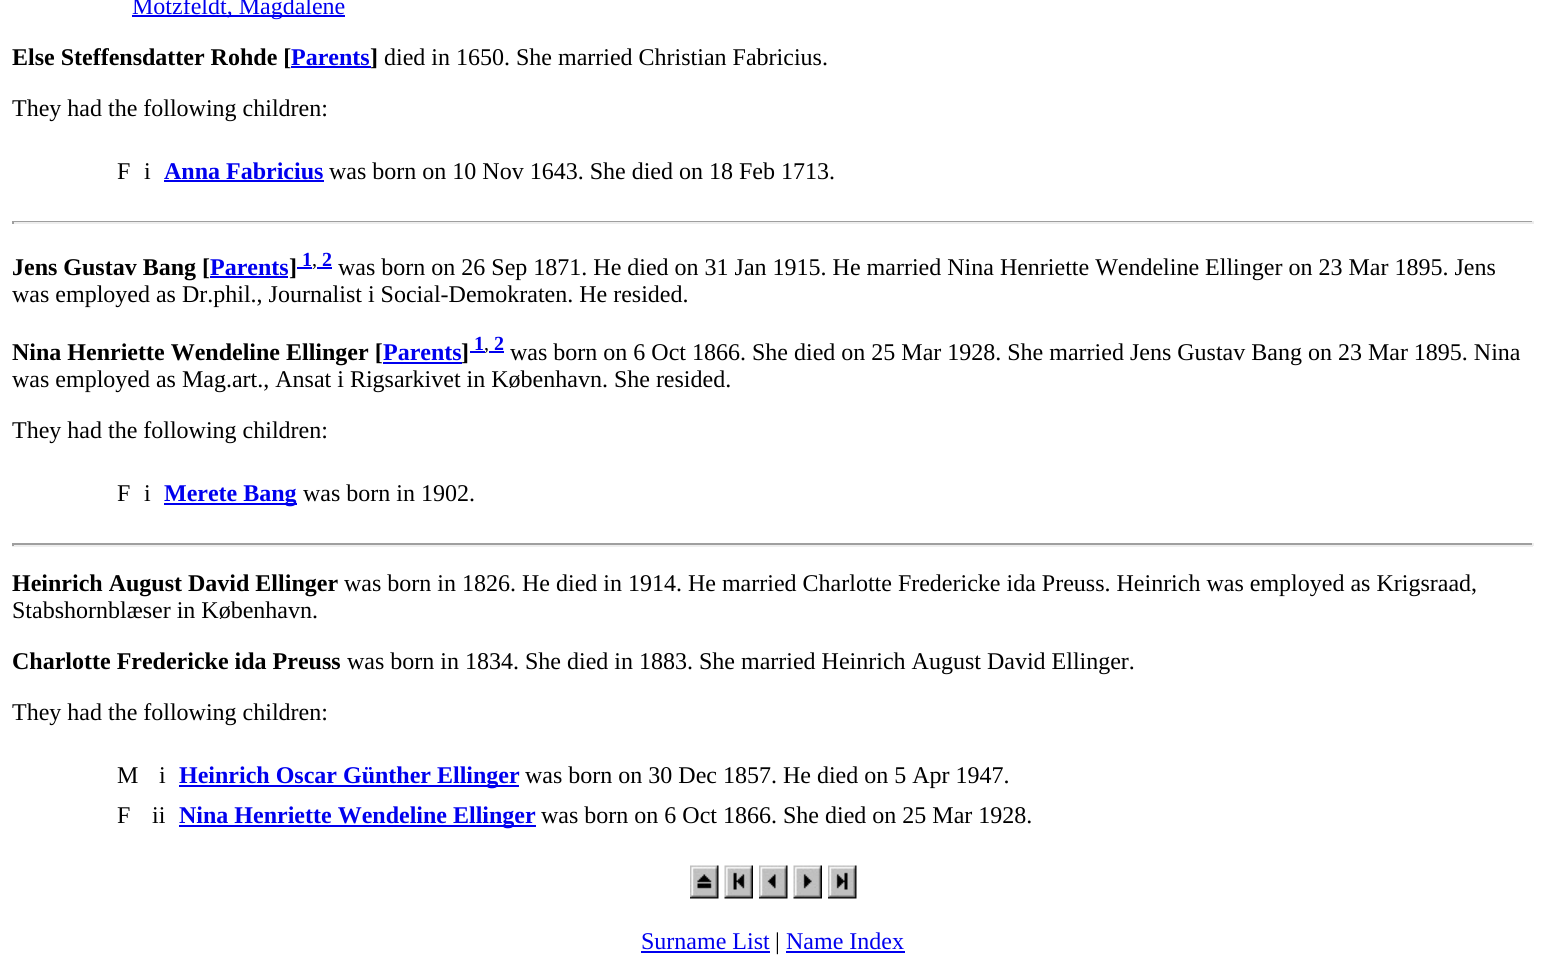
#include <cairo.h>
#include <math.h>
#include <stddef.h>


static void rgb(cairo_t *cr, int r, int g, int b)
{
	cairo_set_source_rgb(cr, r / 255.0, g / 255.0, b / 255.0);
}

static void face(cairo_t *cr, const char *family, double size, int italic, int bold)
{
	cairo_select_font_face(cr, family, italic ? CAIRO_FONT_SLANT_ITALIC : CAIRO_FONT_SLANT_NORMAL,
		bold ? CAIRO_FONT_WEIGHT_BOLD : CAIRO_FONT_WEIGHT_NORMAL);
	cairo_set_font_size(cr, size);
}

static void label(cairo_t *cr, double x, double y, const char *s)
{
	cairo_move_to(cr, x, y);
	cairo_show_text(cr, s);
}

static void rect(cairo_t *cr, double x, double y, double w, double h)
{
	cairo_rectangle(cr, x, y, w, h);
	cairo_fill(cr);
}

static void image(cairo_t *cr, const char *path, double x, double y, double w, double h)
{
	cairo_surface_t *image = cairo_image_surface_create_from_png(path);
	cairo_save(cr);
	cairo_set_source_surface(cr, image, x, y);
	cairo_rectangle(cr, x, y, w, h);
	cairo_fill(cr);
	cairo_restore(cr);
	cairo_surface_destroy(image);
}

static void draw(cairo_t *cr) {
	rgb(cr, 255, 255, 255);
	cairo_paint(cr);
	rgb(cr, 0, 0, 238);
	rect(cr, 132, 15, 213, 2);
	face(cr, "Liberation Serif", 24, 0, 0);
	label(cr, 132, 14, "Motzfeldt, Magdalene");
	face(cr, "Liberation Serif", 24, 0, 1);
	rgb(cr, 0, 0, 0);
	label(cr, 12, 65, "Else Steffensdatter Rohde [");
	rgb(cr, 0, 0, 238);
	rect(cr, 291, 66, 80, 2);
	label(cr, 291, 65, "Parents");
	rgb(cr, 0, 0, 0);
	label(cr, 370, 65, "]");
	face(cr, "Liberation Serif", 24, 0, 0);
	label(cr, 384, 65, "died in 1650. She married Christian Fabricius.");
	label(cr, 12, 116, "They had the following children:");
	label(cr, 117, 179, "F");
	label(cr, 144, 179, "i");
	face(cr, "Liberation Serif", 24, 0, 1);
	rgb(cr, 0, 0, 238);
	label(cr, 164, 179, "Anna Fabricius");
	rect(cr, 164, 180, 160, 2);
	face(cr, "Liberation Serif", 24, 0, 0);
	rgb(cr, 0, 0, 0);
	label(cr, 329, 179, "was born on 10 Nov 1643. She died on 18 Feb 1713.");
	rgb(cr, 159, 159, 159);
	rect(cr, 12, 221, 1521, 1);
	rgb(cr, 238, 238, 238);
	rect(cr, 1532, 221, 2, 3);
	rect(cr, 12, 222, 1521, 2);
	rgb(cr, 159, 159, 159);
	rect(cr, 12, 221, 2, 3);
	face(cr, "Liberation Serif", 24, 0, 1);
	rgb(cr, 0, 0, 0);
	label(cr, 12, 275, "Jens Gustav Bang [");
	rgb(cr, 0, 0, 238);
	rect(cr, 210, 276, 78, 2);
	label(cr, 210, 275, "Parents");
	rgb(cr, 0, 0, 0);
	label(cr, 289, 275, "]");
	face(cr, "Liberation Serif", 20, 0, 1);
	rgb(cr, 0, 0, 238);
	label(cr, 302, 266, "1");
	face(cr, "Liberation Serif", 20, 0, 0);
	rgb(cr, 0, 0, 0);
	label(cr, 312, 266, ",");
	rgb(cr, 0, 0, 238);
	rect(cr, 297, 267, 15, 2);
	rect(cr, 317, 267, 15, 2);
	face(cr, "Liberation Serif", 20, 0, 1);
	label(cr, 322, 266, "2");
	face(cr, "Liberation Serif", 24, 0, 0);
	rgb(cr, 0, 0, 0);
	label(cr, 338, 275, "was born on 26 Sep 1871. He died on 31 Jan 1915. He married Nina Henriette Wendeline Ellinger on 23 Mar 1895. Jens");
	label(cr, 12, 302, "was employed as Dr.phil., Journalist i Social-Demokraten. He resided.");
	face(cr, "Liberation Serif", 24, 0, 1);
	label(cr, 12, 360, "Nina Henriette Wendeline Ellinger [");
	rgb(cr, 0, 0, 238);
	rect(cr, 383, 362, 79, 2);
	label(cr, 383, 360, "Parents");
	rgb(cr, 0, 0, 0);
	label(cr, 461, 360, "]");
	face(cr, "Liberation Serif", 20, 0, 1);
	rgb(cr, 0, 0, 238);
	label(cr, 474, 350, "1");
	face(cr, "Liberation Serif", 20, 0, 0);
	rgb(cr, 0, 0, 0);
	label(cr, 484, 350, ",");
	rgb(cr, 0, 0, 238);
	rect(cr, 470, 351, 15, 2);
	rect(cr, 489, 351, 15, 2);
	face(cr, "Liberation Serif", 20, 0, 1);
	label(cr, 494, 350, "2");
	face(cr, "Liberation Serif", 24, 0, 0);
	rgb(cr, 0, 0, 0);
	label(cr, 510, 360, "was born on 6 Oct 1866. She died on 25 Mar 1928. She married Jens Gustav Bang on 23 Mar 1895. Nina");
	label(cr, 12, 387, "was employed as Mag.art., Ansat i Rigsarkivet in København. She resided.");
	label(cr, 12, 438, "They had the following children:");
	label(cr, 117, 501, "F");
	label(cr, 144, 501, "i");
	rgb(cr, 0, 0, 238);
	rect(cr, 164, 503, 133, 2);
	face(cr, "Liberation Serif", 24, 0, 1);
	label(cr, 164, 501, "Merete Bang");
	face(cr, "Liberation Serif", 24, 0, 0);
	rgb(cr, 0, 0, 0);
	label(cr, 303, 501, "was born in 1902.");
	rgb(cr, 159, 159, 159);
	rect(cr, 12, 543, 1521, 2);
	rgb(cr, 238, 238, 238);
	rect(cr, 1532, 543, 2, 3);
	rect(cr, 12, 545, 1521, 2);
	rgb(cr, 159, 159, 159);
	rect(cr, 12, 543, 2, 3);
	face(cr, "Liberation Serif", 24, 0, 1);
	rgb(cr, 0, 0, 0);
	label(cr, 12, 591, "Heinrich August David Ellinger");
	face(cr, "Liberation Serif", 24, 0, 0);
	label(cr, 344, 591, "was born in 1826. He died in 1914. He married Charlotte Fredericke ida Preuss. Heinrich was employed as Krigsraad,");
	label(cr, 12, 618, "Stabshornblæser in København.");
	face(cr, "Liberation Serif", 24, 0, 1);
	label(cr, 12, 669, "Charlotte Fredericke ida Preuss");
	face(cr, "Liberation Serif", 24, 0, 0);
	label(cr, 347, 669, "was born in 1834. She died in 1883. She married Heinrich August David Ellinger.");
	label(cr, 12, 720, "They had the following children:");
	label(cr, 117, 783, "M");
	label(cr, 159, 783, "i");
	rgb(cr, 0, 0, 238);
	rect(cr, 179, 785, 340, 2);
	face(cr, "Liberation Serif", 24, 0, 1);
	label(cr, 179, 783, "Heinrich Oscar Günther Ellinger");
	face(cr, "Liberation Serif", 24, 0, 0);
	rgb(cr, 0, 0, 0);
	label(cr, 525, 783, "was born on 30 Dec 1857. He died on 5 Apr 1947.");
	label(cr, 117, 823, "F");
	label(cr, 152, 823, "ii");
	rgb(cr, 0, 0, 238);
	rect(cr, 179, 825, 357, 2);
	face(cr, "Liberation Serif", 24, 0, 1);
	label(cr, 179, 823, "Nina Henriette Wendeline Ellinger");
	face(cr, "Liberation Serif", 24, 0, 0);
	rgb(cr, 0, 0, 0);
	label(cr, 541, 823, "was born on 6 Oct 1866. She died on 25 Mar 1928.");
	image(cr, "image0.png", 690, 865, 29, 34);
	image(cr, "image1.png", 724, 865, 29, 34);
	image(cr, "image2.png", 759, 865, 29, 34);
	image(cr, "image3.png", 793, 865, 29, 34);
	image(cr, "image4.png", 828, 865, 29, 34);
	rgb(cr, 0, 0, 238);
	label(cr, 641, 949, "Surname List");
	rect(cr, 641, 951, 129, 2);
	rgb(cr, 0, 0, 0);
	label(cr, 775, 949, "|");
	rgb(cr, 0, 0, 238);
	label(cr, 786, 949, "Name Index");
	rect(cr, 786, 951, 119, 2);
}

int main(void) {
	cairo_surface_t *surface = cairo_image_surface_create(CAIRO_FORMAT_RGB24, 1545, 979);
	cairo_t *cr = cairo_create(surface);
	cairo_font_options_t *options = cairo_font_options_create();
	cairo_font_options_set_hint_metrics(options, CAIRO_HINT_METRICS_OFF);
	cairo_font_options_set_hint_style(options, CAIRO_HINT_STYLE_NONE);
	cairo_set_font_options(cr, options);
	cairo_set_miter_limit(cr, 4);
	draw(cr);
	cairo_surface_write_to_png(surface, "render.png");
	cairo_font_options_destroy(options);
	cairo_destroy(cr);
	cairo_surface_destroy(surface);
	return 0;
}
